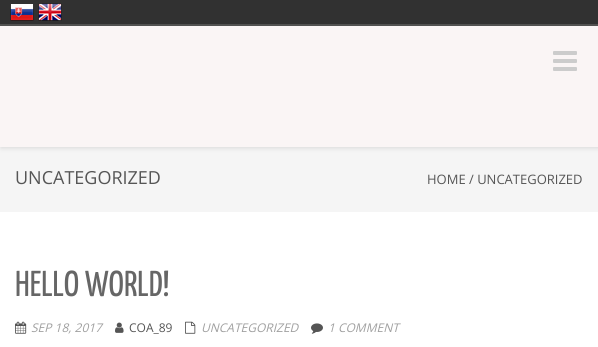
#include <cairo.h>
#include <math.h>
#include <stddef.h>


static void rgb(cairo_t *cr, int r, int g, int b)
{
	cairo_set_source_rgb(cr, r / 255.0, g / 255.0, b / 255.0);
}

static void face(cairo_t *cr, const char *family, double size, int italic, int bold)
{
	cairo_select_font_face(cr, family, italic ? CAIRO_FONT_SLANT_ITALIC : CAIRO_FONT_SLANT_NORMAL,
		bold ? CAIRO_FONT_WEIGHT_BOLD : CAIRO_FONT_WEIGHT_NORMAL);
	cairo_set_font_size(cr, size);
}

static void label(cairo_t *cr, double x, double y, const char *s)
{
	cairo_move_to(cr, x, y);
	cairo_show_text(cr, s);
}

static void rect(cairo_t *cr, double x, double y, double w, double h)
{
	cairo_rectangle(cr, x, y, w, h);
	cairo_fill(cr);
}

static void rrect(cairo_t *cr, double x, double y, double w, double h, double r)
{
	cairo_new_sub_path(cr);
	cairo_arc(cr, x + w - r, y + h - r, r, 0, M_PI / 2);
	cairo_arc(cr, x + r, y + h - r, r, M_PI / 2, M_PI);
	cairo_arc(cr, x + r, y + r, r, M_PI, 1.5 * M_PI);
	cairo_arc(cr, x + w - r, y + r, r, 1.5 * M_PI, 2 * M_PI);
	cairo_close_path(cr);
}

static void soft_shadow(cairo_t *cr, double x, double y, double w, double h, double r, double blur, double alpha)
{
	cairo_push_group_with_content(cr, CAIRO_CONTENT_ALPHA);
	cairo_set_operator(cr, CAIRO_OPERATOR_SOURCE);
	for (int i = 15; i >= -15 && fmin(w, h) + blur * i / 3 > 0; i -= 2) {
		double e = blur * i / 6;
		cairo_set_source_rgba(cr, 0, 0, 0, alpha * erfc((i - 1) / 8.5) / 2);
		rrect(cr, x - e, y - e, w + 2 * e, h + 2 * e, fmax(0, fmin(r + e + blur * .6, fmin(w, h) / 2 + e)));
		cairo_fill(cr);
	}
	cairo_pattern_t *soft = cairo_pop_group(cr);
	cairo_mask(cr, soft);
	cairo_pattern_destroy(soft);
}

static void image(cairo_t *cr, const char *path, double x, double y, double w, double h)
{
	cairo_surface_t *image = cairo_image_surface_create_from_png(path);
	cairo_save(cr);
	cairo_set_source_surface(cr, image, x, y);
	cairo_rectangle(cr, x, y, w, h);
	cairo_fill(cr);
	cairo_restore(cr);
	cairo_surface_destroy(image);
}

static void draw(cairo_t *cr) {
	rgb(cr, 255, 255, 255);
	cairo_paint(cr);
	rgb(cr, 245, 245, 245);
	rect(cr, 0, 147, 598, 65);
	rgb(cr, 100, 100, 100);
	soft_shadow(cr, 1, 27, 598, 121, 0, 2.5, 0.2);
	rgb(cr, 49, 49, 49);
	rect(cr, 0, 0, 598, 24);
	rgb(cr, 81, 81, 80);
	rect(cr, 0, 24, 598, 2);
	image(cr, "image0.png", 10, 4, 24, 17);
	image(cr, "image1.png", 38, 3, 24, 18);
	rgb(cr, 250, 245, 245);
	rect(cr, 0, 26, 598, 121);
	image(cr, "image2.png", 553, 51, 24, 20);
	face(cr, "Open Sans", 18, 0, 0);
	rgb(cr, 85, 85, 85);
	label(cr, 15, 184, "UNCATEGORIZED");
	face(cr, "Open Sans", 13, 0, 0);
	label(cr, 427, 184, "HOME / UNCATEGORIZED");
	face(cr, "Yanone Kaffeesatz ExtraLight", 36, 0, 0);
	rgb(cr, 102, 102, 102);
	label(cr, 15, 296, "HELLO WORLD!");
	image(cr, "image3.png", 15, 321, 12, 13);
	face(cr, "Open Sans", 12, 1, 0);
	rgb(cr, 160, 160, 160);
	label(cr, 31, 332, "SEP 18, 2017");
	image(cr, "image4.png", 115, 322, 9, 11);
	face(cr, "Open Sans", 12, 0, 0);
	rgb(cr, 85, 85, 85);
	label(cr, 129, 332, "COA_89");
	image(cr, "image5.png", 185, 321, 11, 13);
	face(cr, "Open Sans", 12, 1, 0);
	rgb(cr, 160, 160, 160);
	label(cr, 201, 332, "UNCATEGORIZED");
	image(cr, "image6.png", 311, 323, 12, 11);
	label(cr, 328, 332, "1 COMMENT");
}

int main(void) {
	cairo_surface_t *surface = cairo_image_surface_create(CAIRO_FORMAT_RGB24, 598, 347);
	cairo_t *cr = cairo_create(surface);
	cairo_font_options_t *options = cairo_font_options_create();
	cairo_font_options_set_hint_metrics(options, CAIRO_HINT_METRICS_OFF);
	cairo_font_options_set_hint_style(options, CAIRO_HINT_STYLE_NONE);
	cairo_set_font_options(cr, options);
	cairo_set_miter_limit(cr, 4);
	draw(cr);
	cairo_surface_write_to_png(surface, "render.png");
	cairo_font_options_destroy(options);
	cairo_destroy(cr);
	cairo_surface_destroy(surface);
	return 0;
}
